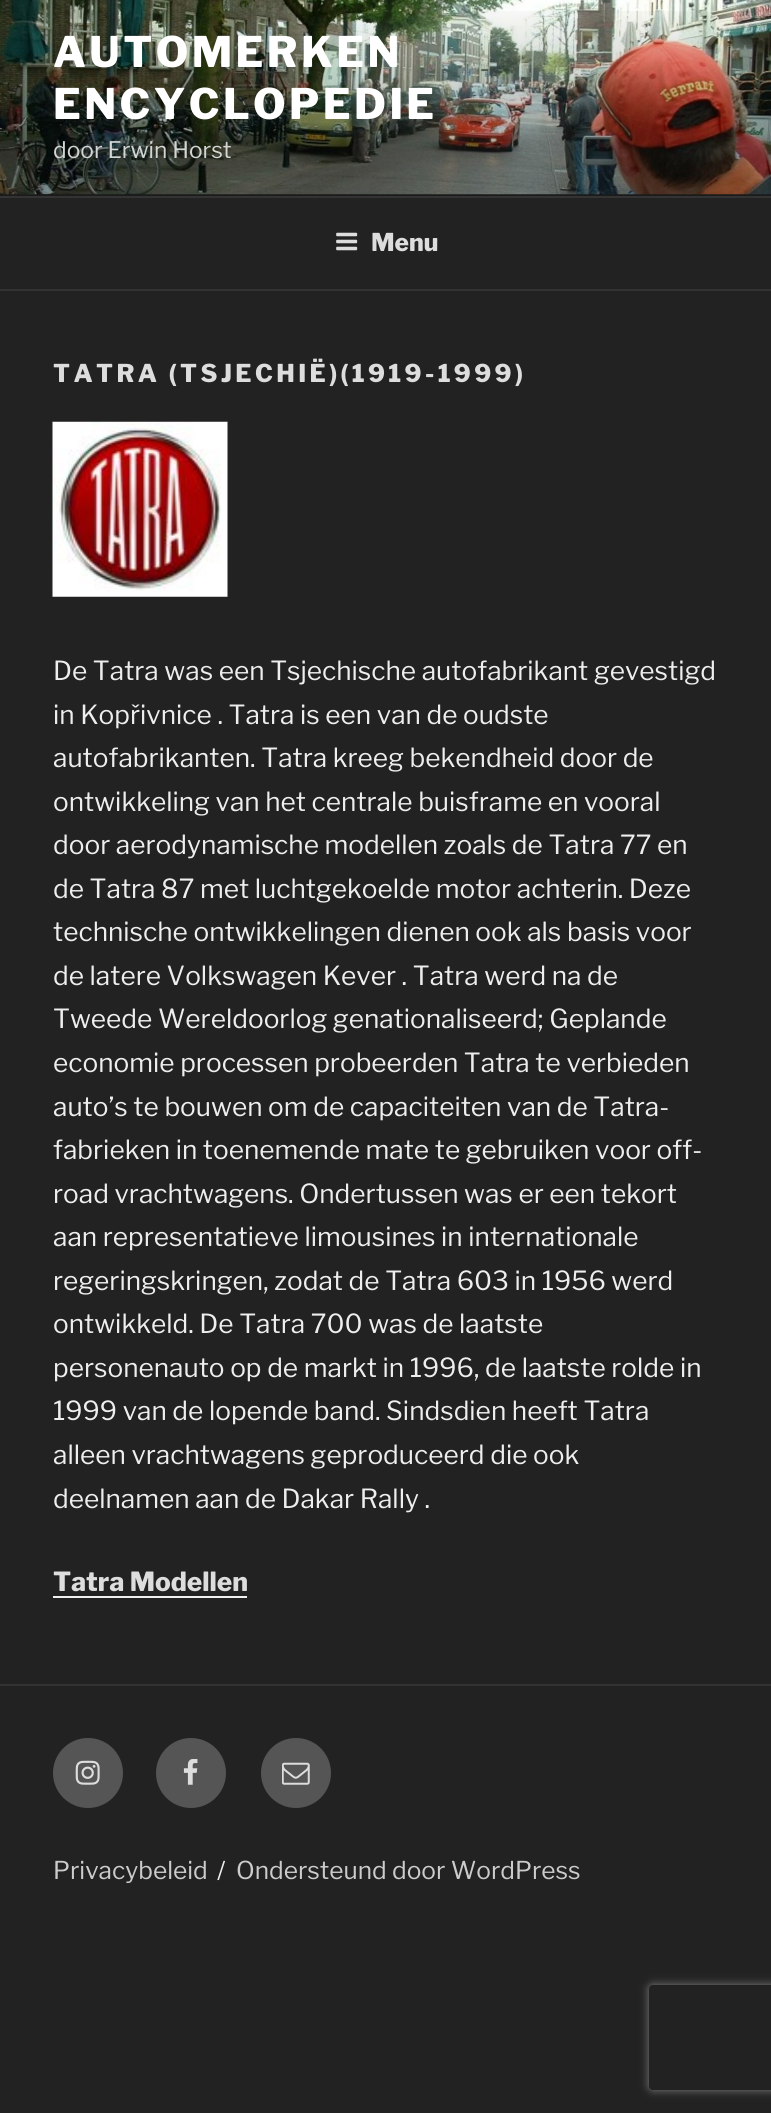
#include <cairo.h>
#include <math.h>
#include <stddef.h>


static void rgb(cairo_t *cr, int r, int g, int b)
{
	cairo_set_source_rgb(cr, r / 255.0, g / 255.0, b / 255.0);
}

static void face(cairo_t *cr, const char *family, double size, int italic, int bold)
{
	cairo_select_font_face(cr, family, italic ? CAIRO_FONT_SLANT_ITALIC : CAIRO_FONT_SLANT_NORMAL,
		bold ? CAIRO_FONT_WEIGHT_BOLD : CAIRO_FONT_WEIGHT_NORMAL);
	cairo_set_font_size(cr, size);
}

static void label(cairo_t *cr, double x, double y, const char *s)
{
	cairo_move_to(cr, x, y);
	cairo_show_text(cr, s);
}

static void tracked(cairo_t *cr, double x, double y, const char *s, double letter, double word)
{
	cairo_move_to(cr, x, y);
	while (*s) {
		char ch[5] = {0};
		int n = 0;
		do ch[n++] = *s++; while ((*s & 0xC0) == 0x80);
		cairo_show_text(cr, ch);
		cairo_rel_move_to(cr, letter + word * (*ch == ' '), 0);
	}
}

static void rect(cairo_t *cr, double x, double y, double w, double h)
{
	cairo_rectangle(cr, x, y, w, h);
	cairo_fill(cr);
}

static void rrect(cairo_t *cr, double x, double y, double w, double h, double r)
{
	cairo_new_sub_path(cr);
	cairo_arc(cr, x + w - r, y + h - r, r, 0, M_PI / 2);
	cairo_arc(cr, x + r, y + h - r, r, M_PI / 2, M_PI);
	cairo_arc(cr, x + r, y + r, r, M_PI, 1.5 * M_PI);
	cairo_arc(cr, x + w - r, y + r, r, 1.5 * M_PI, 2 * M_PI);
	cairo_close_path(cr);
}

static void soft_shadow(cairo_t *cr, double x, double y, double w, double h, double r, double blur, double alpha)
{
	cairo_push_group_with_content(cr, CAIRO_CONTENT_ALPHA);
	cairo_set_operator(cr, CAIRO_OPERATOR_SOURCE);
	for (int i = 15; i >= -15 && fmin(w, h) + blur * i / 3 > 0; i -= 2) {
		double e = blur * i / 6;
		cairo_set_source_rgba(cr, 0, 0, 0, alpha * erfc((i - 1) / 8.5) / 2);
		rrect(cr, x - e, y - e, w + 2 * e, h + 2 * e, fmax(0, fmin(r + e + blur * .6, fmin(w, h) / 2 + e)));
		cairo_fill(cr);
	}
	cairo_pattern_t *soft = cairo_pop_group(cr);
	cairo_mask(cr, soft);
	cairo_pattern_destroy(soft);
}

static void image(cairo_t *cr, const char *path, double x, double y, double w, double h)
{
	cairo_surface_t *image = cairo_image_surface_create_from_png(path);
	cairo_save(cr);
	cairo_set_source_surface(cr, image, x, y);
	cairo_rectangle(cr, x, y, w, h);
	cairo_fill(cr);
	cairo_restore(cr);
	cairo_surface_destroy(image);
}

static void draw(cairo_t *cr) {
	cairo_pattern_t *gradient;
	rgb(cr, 34, 34, 34);
	cairo_paint(cr);
	rgb(cr, 38, 38, 38);
	rect(cr, 0, 194, 771, 2);
	image(cr, "image0.png", 0, 0, 771, 195);
	gradient = cairo_pattern_create_linear(386, 0, 386, 196);
	cairo_pattern_add_color_stop_rgba(gradient, 0, 0, 0, 0, 0);
	cairo_pattern_add_color_stop_rgba(gradient, 0.75, 0, 0, 0, 0.3);
	cairo_pattern_add_color_stop_rgba(gradient, 1, 0, 0, 0, 0.3);
	cairo_set_source(cr, gradient);
	cairo_pattern_destroy(gradient);
	rect(cr, 0, 11, 771, 185);
	face(cr, "Libre Franklin Thin", 42, 0, 0);
	rgb(cr, 255, 255, 255);
	tracked(cr, 53, 67, "AUTOMERKEN", 3.4, 0);
	tracked(cr, 53, 119, "ENCYCLOPEDIE", 3.4, 0);
	face(cr, "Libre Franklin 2 Thin", 22.75, 0, 0);
	rgb(cr, 212, 214, 212);
	label(cr, 53, 158, "door Erwin Horst");
	rgb(cr, 51, 51, 51);
	rect(cr, 0, 196, 771, 2);
	rect(cr, 0, 289, 771, 2);
	image(cr, "image1.png", 336, 232, 22, 19);
	face(cr, "Libre Franklin Thin", 24.5, 0, 0);
	rgb(cr, 221, 221, 221);
	label(cr, 371, 251, "Menu");
	tracked(cr, 53, 382, "TATRA (TSJECHIË)(1919-1999)", 3.4, 0);
	image(cr, "image2.png", 52, 421, 176, 176);
	face(cr, "Libre Franklin 2 Thin", 26.25, 0, 0);
	rgb(cr, 238, 238, 238);
	label(cr, 53, 680, "De Tatra was een Tsjechische autofabrikant gevestigd");
	label(cr, 53, 724, "in Kopřivnice . Tatra is een van de oudste");
	label(cr, 53, 767, "autofabrikanten. Tatra kreeg bekendheid door de");
	label(cr, 53, 811, "ontwikkeling van het centrale buisframe en vooral");
	label(cr, 53, 854, "door aerodynamische modellen zoals de Tatra 77 en");
	label(cr, 53, 898, "de Tatra 87 met luchtgekoelde motor achterin. Deze");
	label(cr, 53, 941, "technische ontwikkelingen dienen ook als basis voor");
	label(cr, 53, 985, "de latere Volkswagen Kever . Tatra werd na de");
	label(cr, 53, 1028, "Tweede Wereldoorlog genationaliseerd; Geplande");
	label(cr, 53, 1072, "economie processen probeerden Tatra te verbieden");
	label(cr, 53, 1116, "auto’s te bouwen om de capaciteiten van de Tatra-");
	label(cr, 53, 1159, "fabrieken in toenemende mate te gebruiken voor off-");
	label(cr, 53, 1203, "road vrachtwagens. Ondertussen was er een tekort");
	label(cr, 53, 1246, "aan representatieve limousines in internationale");
	label(cr, 53, 1290, "regeringskringen, zodat de Tatra 603 in 1956 werd");
	label(cr, 53, 1333, "ontwikkeld. De Tatra 700 was de laatste");
	label(cr, 53, 1377, "personenauto op de markt in 1996, de laatste rolde in");
	label(cr, 53, 1420, "1999 van de lopende band. Sindsdien heeft Tatra");
	label(cr, 53, 1464, "alleen vrachtwagens geproduceerd die ook");
	label(cr, 53, 1508, "deelnamen aan de Dakar Rally .");
	face(cr, "Libre Franklin Thin", 26.25, 0, 0);
	rgb(cr, 221, 221, 221);
	label(cr, 53, 1591, "Tatra Modellen");
	rgb(cr, 240, 240, 240);
	rect(cr, 53, 1596, 194, 2);
	rgb(cr, 51, 51, 51);
	rect(cr, 0, 1684, 771, 2);
	rgb(cr, 85, 85, 85);
	cairo_new_path(cr);
	cairo_arc(cr, 88, 1773, 35, 0, 2 * M_PI);
	cairo_fill(cr);
	image(cr, "image3.png", 75, 1760, 25, 25);
	cairo_arc(cr, 191, 1773, 35, 0, 2 * M_PI);
	cairo_fill(cr);
	image(cr, "image4.png", 183, 1759, 15, 26);
	cairo_arc(cr, 296, 1773, 35, 0, 2 * M_PI);
	cairo_fill(cr);
	image(cr, "image5.png", 282, 1762, 28, 23);
	face(cr, "Libre Franklin 2 Thin", 24.5, 0, 0);
	rgb(cr, 204, 204, 204);
	label(cr, 53, 1879, "Privacybeleid");
	rgb(cr, 238, 238, 238);
	label(cr, 217, 1879, "/");
	rgb(cr, 204, 204, 204);
	label(cr, 236, 1879, "Ondersteund door WordPress");
	cairo_save(cr);
	cairo_set_fill_rule(cr, CAIRO_FILL_RULE_EVEN_ODD);
	cairo_new_path(cr);
	cairo_move_to(cr, 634, 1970);
	cairo_line_to(cr, 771, 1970);
	cairo_line_to(cr, 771, 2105);
	cairo_line_to(cr, 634, 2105);
	cairo_close_path(cr);
	cairo_move_to(cr, 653, 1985);
	cairo_line_to(cr, 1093, 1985);
	cairo_curve_to(cr, 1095, 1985, 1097, 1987, 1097, 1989);
	cairo_line_to(cr, 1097, 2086);
	cairo_curve_to(cr, 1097, 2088, 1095, 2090, 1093, 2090);
	cairo_line_to(cr, 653, 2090);
	cairo_curve_to(cr, 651, 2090, 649, 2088, 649, 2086);
	cairo_line_to(cr, 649, 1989);
	cairo_curve_to(cr, 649, 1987, 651, 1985, 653, 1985);
	cairo_close_path(cr);
	cairo_clip(cr);
	rgb(cr, 128, 128, 128);
	soft_shadow(cr, 649, 1985, 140, 105, 4, 4.5, 1);
	cairo_restore(cr);
}

int main(void) {
	cairo_surface_t *surface = cairo_image_surface_create(CAIRO_FORMAT_RGB24, 771, 2113);
	cairo_t *cr = cairo_create(surface);
	cairo_font_options_t *options = cairo_font_options_create();
	cairo_font_options_set_hint_metrics(options, CAIRO_HINT_METRICS_OFF);
	cairo_font_options_set_hint_style(options, CAIRO_HINT_STYLE_NONE);
	cairo_set_font_options(cr, options);
	cairo_set_miter_limit(cr, 4);
	draw(cr);
	cairo_surface_write_to_png(surface, "render.png");
	cairo_font_options_destroy(options);
	cairo_destroy(cr);
	cairo_surface_destroy(surface);
	return 0;
}
